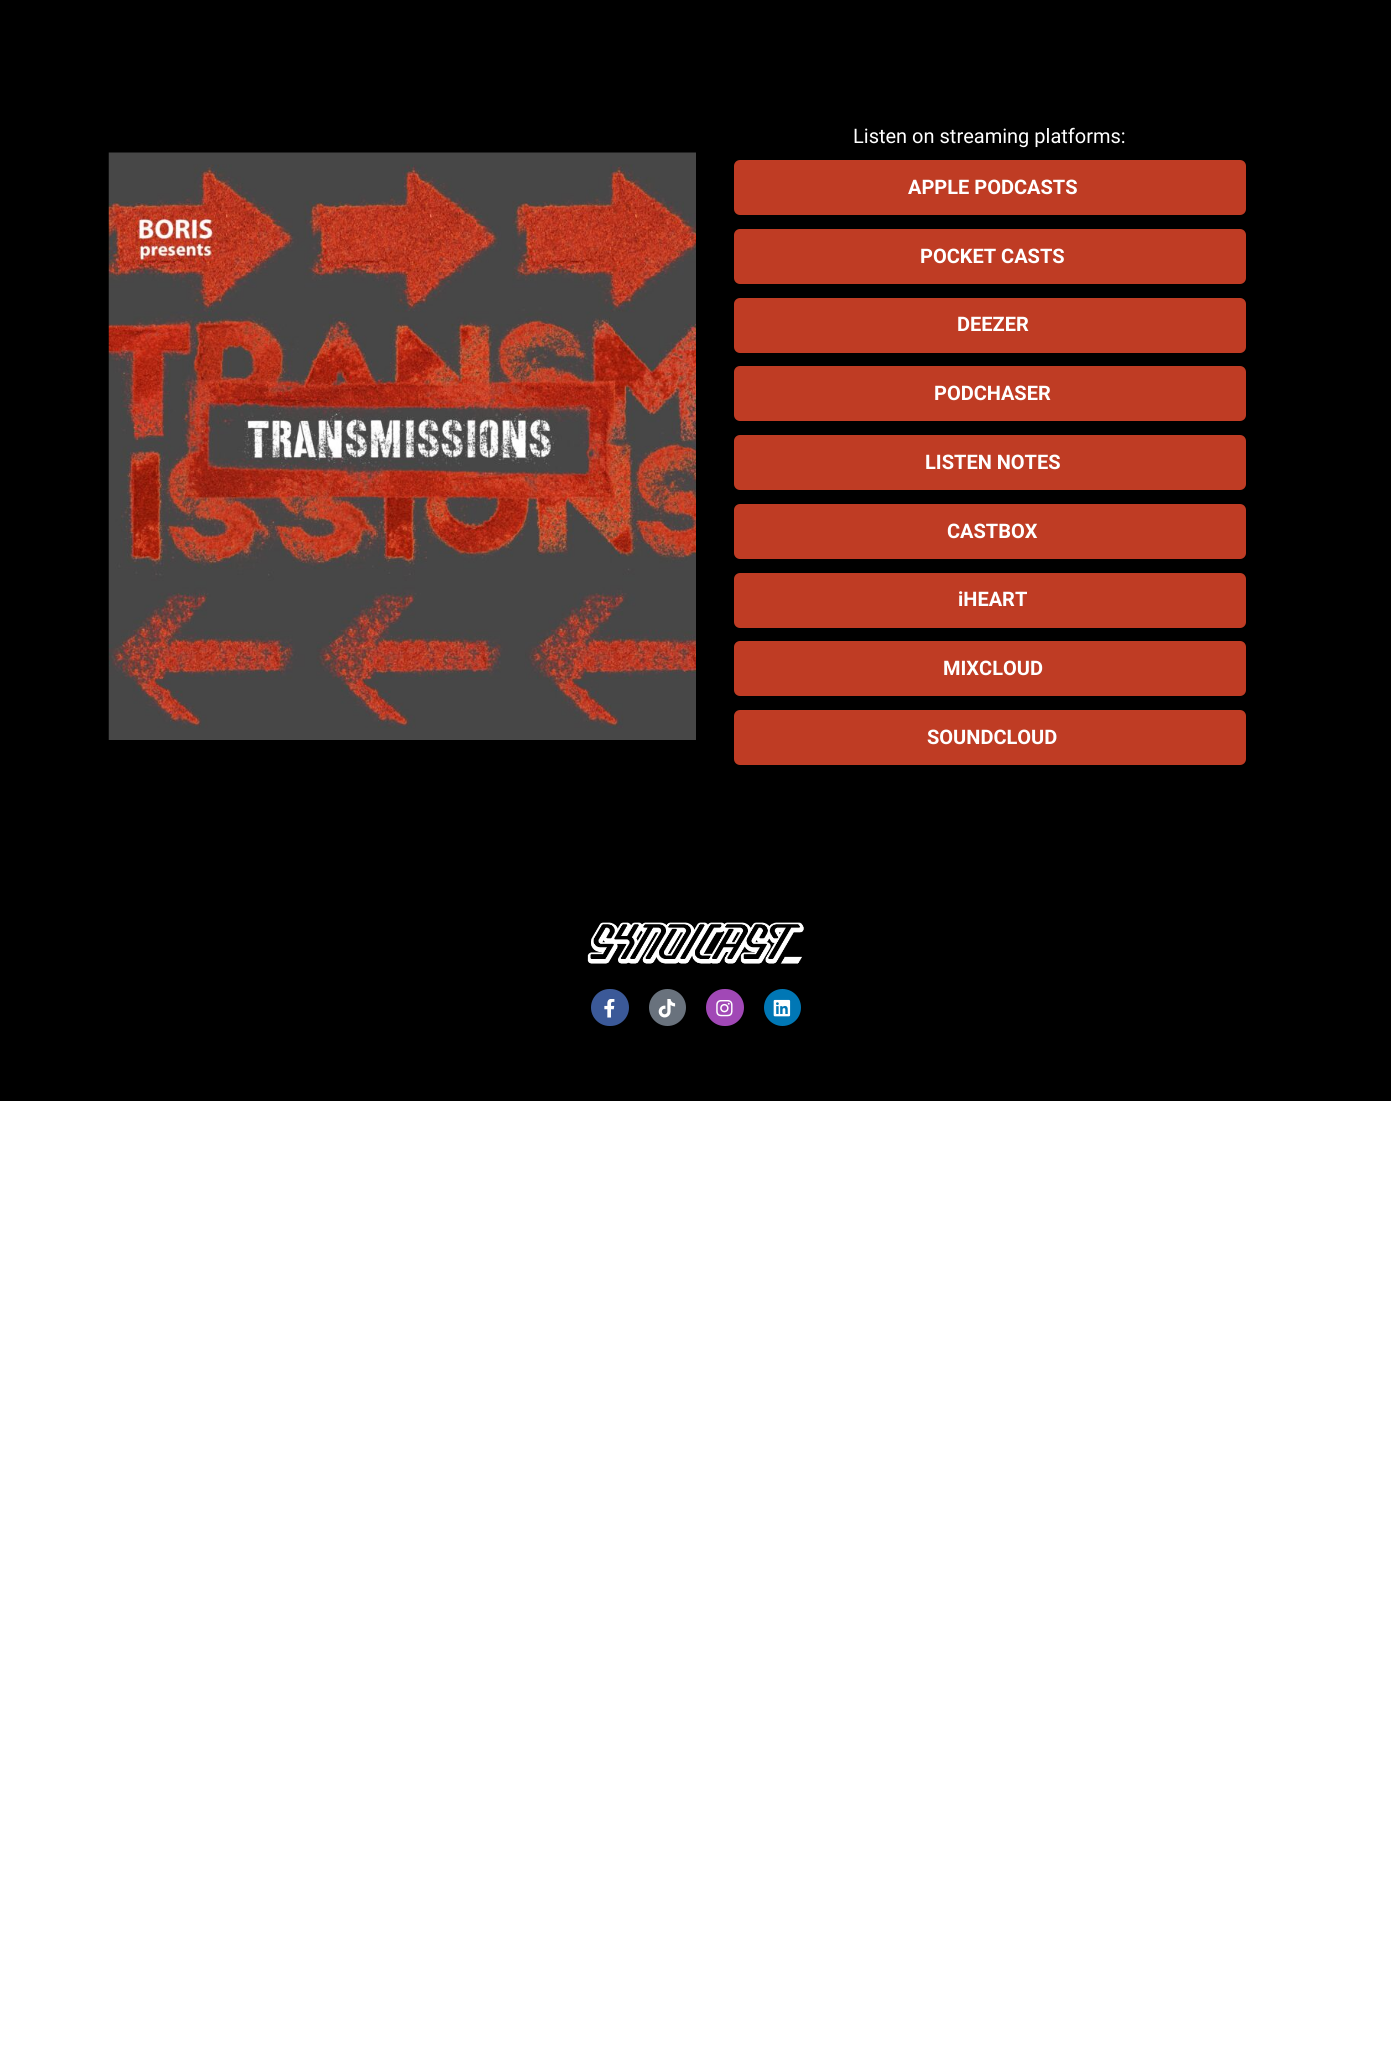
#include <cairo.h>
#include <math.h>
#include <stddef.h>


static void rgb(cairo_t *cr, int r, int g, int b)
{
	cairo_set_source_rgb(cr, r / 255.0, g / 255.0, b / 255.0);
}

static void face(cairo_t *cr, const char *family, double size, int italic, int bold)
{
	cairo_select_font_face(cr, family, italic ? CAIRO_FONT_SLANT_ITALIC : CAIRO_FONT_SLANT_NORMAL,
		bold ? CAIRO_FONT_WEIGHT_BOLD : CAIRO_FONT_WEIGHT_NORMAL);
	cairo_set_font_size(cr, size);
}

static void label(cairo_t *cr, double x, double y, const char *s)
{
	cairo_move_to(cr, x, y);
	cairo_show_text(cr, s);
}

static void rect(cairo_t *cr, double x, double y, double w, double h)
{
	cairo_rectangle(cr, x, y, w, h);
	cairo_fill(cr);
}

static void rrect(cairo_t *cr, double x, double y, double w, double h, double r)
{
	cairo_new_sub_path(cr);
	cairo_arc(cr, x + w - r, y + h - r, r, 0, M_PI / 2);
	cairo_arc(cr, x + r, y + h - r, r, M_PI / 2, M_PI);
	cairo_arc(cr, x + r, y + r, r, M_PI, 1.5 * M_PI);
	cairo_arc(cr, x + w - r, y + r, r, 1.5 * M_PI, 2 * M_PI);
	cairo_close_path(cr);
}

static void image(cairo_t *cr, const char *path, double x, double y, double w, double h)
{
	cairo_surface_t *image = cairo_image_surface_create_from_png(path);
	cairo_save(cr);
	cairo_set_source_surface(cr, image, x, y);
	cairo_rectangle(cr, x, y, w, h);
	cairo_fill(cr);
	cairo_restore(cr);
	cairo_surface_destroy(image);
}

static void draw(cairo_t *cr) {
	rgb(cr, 255, 255, 255);
	cairo_paint(cr);
	rgb(cr, 0, 0, 0);
	rect(cr, 0, 0, 1391, 1101);
	image(cr, "image0.png", 108, 152, 588, 588);
	face(cr, "Roboto", 20, 0, 0);
	rgb(cr, 255, 255, 255);
	label(cr, 853, 143, "Listen on streaming platforms:");
	rgb(cr, 191, 60, 36);
	rrect(cr, 735.5, 161.5, 509, 52, 4.5);
	cairo_fill_preserve(cr);
	cairo_set_line_width(cr, 3);
	cairo_stroke(cr);
	face(cr, "Roboto", 20, 0, 1);
	rgb(cr, 255, 255, 255);
	label(cr, 908, 194, "APPLE PODCASTS");
	rgb(cr, 191, 60, 36);
	rrect(cr, 735.5, 230.5, 509, 52, 4.5);
	cairo_fill_preserve(cr);
	cairo_stroke(cr);
	rgb(cr, 255, 255, 255);
	label(cr, 920, 263, "POCKET CASTS");
	rgb(cr, 191, 60, 36);
	rrect(cr, 735.5, 299.5, 509, 52, 4.5);
	cairo_fill_preserve(cr);
	cairo_stroke(cr);
	rgb(cr, 255, 255, 255);
	label(cr, 957, 331, "DEEZER");
	rgb(cr, 191, 60, 36);
	rrect(cr, 735.5, 367.5, 509, 52, 4.5);
	cairo_fill_preserve(cr);
	cairo_stroke(cr);
	rgb(cr, 255, 255, 255);
	label(cr, 934, 400, "PODCHASER");
	rgb(cr, 191, 60, 36);
	rrect(cr, 735.5, 436.5, 509, 52, 4.5);
	cairo_fill_preserve(cr);
	cairo_stroke(cr);
	rgb(cr, 255, 255, 255);
	label(cr, 925, 469, "LISTEN NOTES");
	rgb(cr, 191, 60, 36);
	rrect(cr, 735.5, 505.5, 509, 52, 4.5);
	cairo_fill_preserve(cr);
	cairo_stroke(cr);
	rgb(cr, 255, 255, 255);
	label(cr, 947, 538, "CASTBOX");
	rgb(cr, 191, 60, 36);
	rrect(cr, 735.5, 574.5, 509, 52, 4.5);
	cairo_fill_preserve(cr);
	cairo_stroke(cr);
	rgb(cr, 255, 255, 255);
	label(cr, 958, 606, "iHEART");
	rgb(cr, 191, 60, 36);
	rrect(cr, 735.5, 642.5, 509, 52, 4.5);
	cairo_fill_preserve(cr);
	cairo_stroke(cr);
	rgb(cr, 255, 255, 255);
	label(cr, 943, 675, "MIXCLOUD");
	rgb(cr, 191, 60, 36);
	rrect(cr, 735.5, 711.5, 509, 52, 4.5);
	cairo_fill_preserve(cr);
	cairo_stroke(cr);
	rgb(cr, 255, 255, 255);
	label(cr, 927, 744, "SOUNDCLOUD");
	image(cr, "image1.png", 587, 922, 217, 42);
	rgb(cr, 59, 89, 152);
	rrect(cr, 591, 989, 38, 37, 18.5);
	cairo_fill(cr);
	image(cr, "image2.png", 604, 999, 11, 19);
	rgb(cr, 105, 114, 125);
	cairo_arc(cr, 667.5, 1007.5, 18.5, 0, 2 * M_PI);
	cairo_fill(cr);
	image(cr, "image3.png", 658, 999, 18, 19);
	rgb(cr, 161, 72, 182);
	rrect(cr, 706, 989, 38, 37, 18.5);
	cairo_fill(cr);
	image(cr, "image4.png", 716, 1000, 17, 17);
	rgb(cr, 0, 119, 181);
	cairo_arc(cr, 782.5, 1007.5, 18.5, 0, 2 * M_PI);
	cairo_fill(cr);
	image(cr, "image5.png", 773, 999, 18, 18);
}

int main(void) {
	cairo_surface_t *surface = cairo_image_surface_create(CAIRO_FORMAT_RGB24, 1391, 2068);
	cairo_t *cr = cairo_create(surface);
	cairo_font_options_t *options = cairo_font_options_create();
	cairo_font_options_set_hint_metrics(options, CAIRO_HINT_METRICS_OFF);
	cairo_font_options_set_hint_style(options, CAIRO_HINT_STYLE_NONE);
	cairo_set_font_options(cr, options);
	cairo_set_miter_limit(cr, 4);
	draw(cr);
	cairo_surface_write_to_png(surface, "render.png");
	cairo_font_options_destroy(options);
	cairo_destroy(cr);
	cairo_surface_destroy(surface);
	return 0;
}
